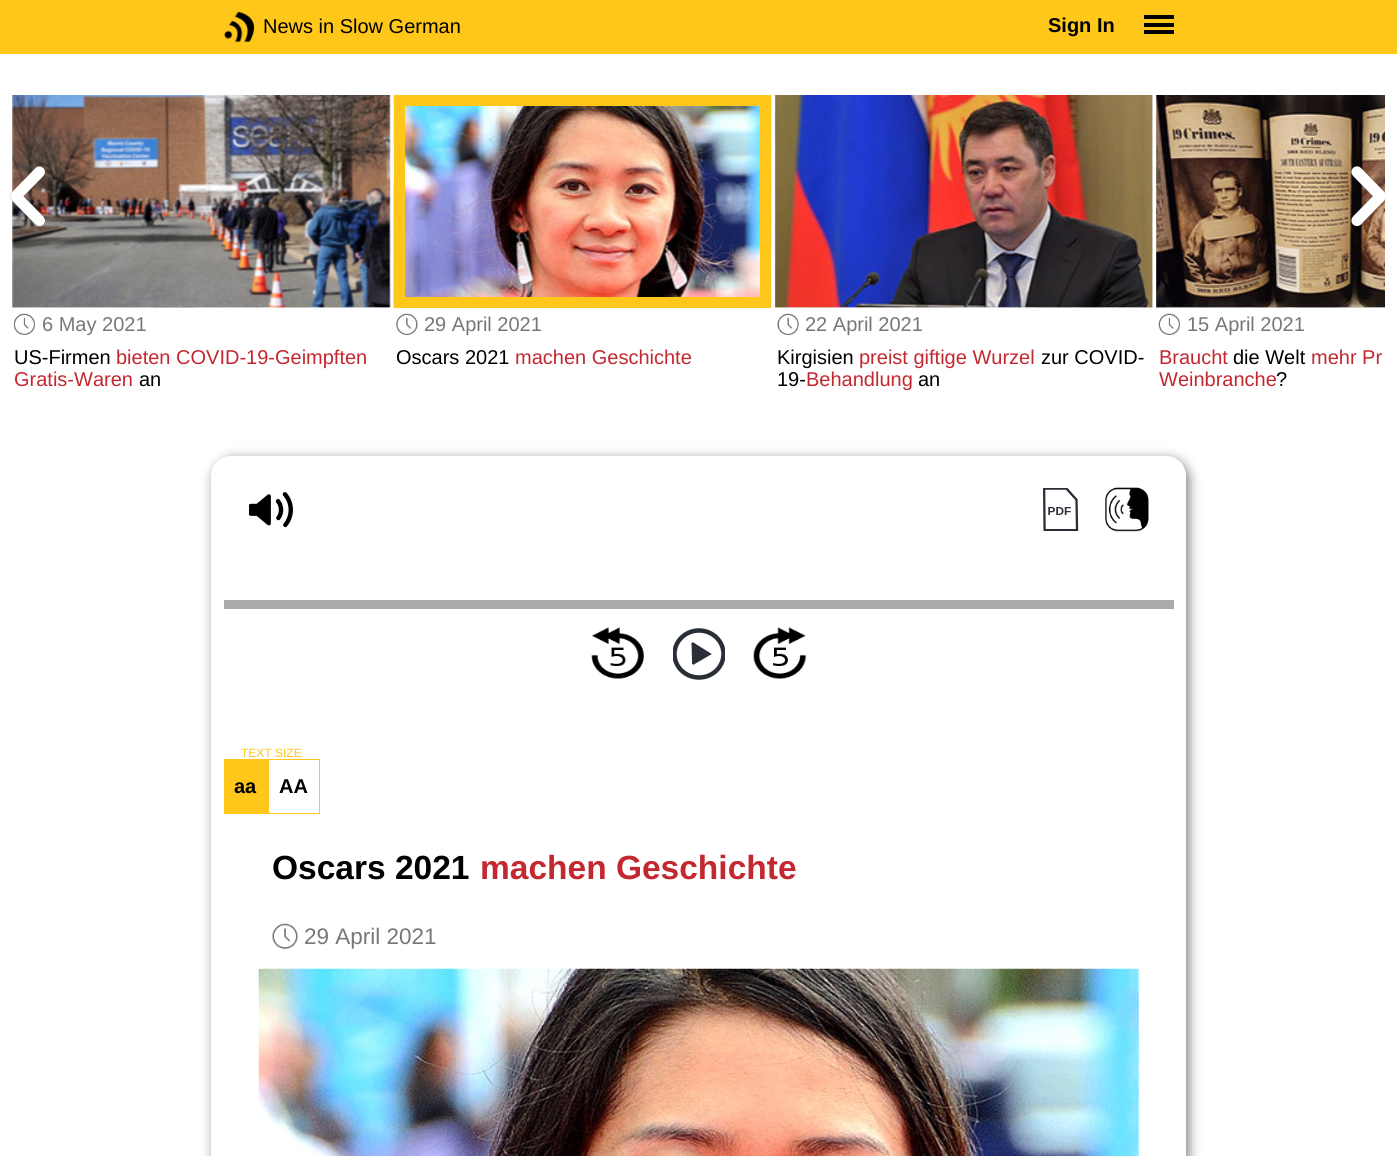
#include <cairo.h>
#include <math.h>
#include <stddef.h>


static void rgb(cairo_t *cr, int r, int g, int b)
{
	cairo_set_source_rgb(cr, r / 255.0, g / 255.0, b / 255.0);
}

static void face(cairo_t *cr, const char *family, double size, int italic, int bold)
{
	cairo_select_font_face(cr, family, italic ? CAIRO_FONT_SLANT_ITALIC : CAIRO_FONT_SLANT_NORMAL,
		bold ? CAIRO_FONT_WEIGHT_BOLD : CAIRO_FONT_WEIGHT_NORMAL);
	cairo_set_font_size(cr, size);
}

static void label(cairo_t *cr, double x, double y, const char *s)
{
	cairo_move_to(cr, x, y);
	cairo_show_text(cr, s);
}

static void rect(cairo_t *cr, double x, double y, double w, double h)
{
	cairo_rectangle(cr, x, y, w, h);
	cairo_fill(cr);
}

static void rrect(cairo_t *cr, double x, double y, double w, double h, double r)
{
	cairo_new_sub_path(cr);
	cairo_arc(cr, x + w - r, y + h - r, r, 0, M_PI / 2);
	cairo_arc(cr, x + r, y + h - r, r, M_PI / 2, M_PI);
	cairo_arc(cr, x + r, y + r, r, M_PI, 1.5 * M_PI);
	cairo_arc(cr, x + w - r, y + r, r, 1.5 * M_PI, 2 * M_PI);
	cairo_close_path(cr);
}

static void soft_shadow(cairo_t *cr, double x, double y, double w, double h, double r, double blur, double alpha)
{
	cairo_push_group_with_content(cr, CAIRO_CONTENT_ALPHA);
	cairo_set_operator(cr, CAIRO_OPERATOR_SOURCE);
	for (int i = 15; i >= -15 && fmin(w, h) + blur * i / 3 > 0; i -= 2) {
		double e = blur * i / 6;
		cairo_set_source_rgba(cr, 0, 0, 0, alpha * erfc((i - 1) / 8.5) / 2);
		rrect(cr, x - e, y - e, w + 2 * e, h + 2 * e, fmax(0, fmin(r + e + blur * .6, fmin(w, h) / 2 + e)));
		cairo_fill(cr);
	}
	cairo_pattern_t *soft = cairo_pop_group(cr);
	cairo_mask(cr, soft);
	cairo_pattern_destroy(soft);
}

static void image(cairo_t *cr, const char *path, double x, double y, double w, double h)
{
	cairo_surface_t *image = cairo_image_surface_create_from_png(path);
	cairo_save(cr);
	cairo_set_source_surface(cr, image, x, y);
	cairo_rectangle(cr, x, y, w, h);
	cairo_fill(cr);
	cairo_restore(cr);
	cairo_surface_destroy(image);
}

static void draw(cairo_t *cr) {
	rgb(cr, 255, 255, 255);
	cairo_paint(cr);
	rgb(cr, 255, 199, 26);
	rect(cr, 0, 0, 1397, 54);
	image(cr, "image0.png", 224, 11, 31, 32);
	face(cr, "Liberation Sans", 20, 0, 0);
	rgb(cr, 0, 0, 0);
	label(cr, 263, 33, "News in Slow German");
	face(cr, "Liberation Sans", 20, 0, 1);
	label(cr, 1048, 32, "Sign In");
	rect(cr, 1144, 15, 30, 4);
	rect(cr, 1144, 23, 30, 4);
	rect(cr, 1144, 30, 30, 4);
	rgb(cr, 250, 250, 250);
	rect(cr, 13, 95, 377, 213);
	image(cr, "image3.png", 12, 95, 379, 213);
	image(cr, "image4.png", 12, 95, 379, 213);
	image(cr, "image1.png", 10, 166, 35, 60);
	image(cr, "image12.png", 1156, 95, 229, 213);
	image(cr, "image13.png", 1156, 95, 229, 213);
	image(cr, "image2.png", 1351, 166, 35, 60);
	image(cr, "image5.png", 14, 313, 21, 22);
	face(cr, "Liberation Sans", 20, 0, 0);
	rgb(cr, 119, 119, 119);
	label(cr, 42, 331, "6 May 2021");
	rgb(cr, 0, 0, 0);
	label(cr, 14, 364, "US-Firmen");
	rgb(cr, 195, 39, 47);
	label(cr, 116, 364, "bieten COVID-19-Geimpften");
	label(cr, 14, 386, "Gratis-Waren");
	rgb(cr, 0, 0, 0);
	label(cr, 139, 386, "an");
	image(cr, "image6.png", 393, 95, 379, 213);
	image(cr, "image7.png", 393, 95, 379, 213);
	cairo_rectangle(cr, 399.5, 100.5, 366, 202);
	rgb(cr, 255, 199, 26);
	cairo_set_line_width(cr, 11);
	cairo_stroke(cr);
	image(cr, "image8.png", 396, 313, 22, 22);
	rgb(cr, 119, 119, 119);
	label(cr, 424, 331, "29 April 2021");
	rgb(cr, 0, 0, 0);
	label(cr, 396, 364, "Oscars 2021");
	rgb(cr, 195, 39, 47);
	label(cr, 515, 364, "machen Geschichte");
	rgb(cr, 250, 250, 250);
	rect(cr, 775, 95, 378, 213);
	image(cr, "image9.png", 775, 95, 378, 213);
	image(cr, "image10.png", 774, 95, 379, 213);
	image(cr, "image11.png", 777, 313, 22, 22);
	rgb(cr, 119, 119, 119);
	label(cr, 805, 331, "22 April 2021");
	rgb(cr, 0, 0, 0);
	label(cr, 777, 364, "Kirgisien");
	rgb(cr, 195, 39, 47);
	label(cr, 859, 364, "preist giftige Wurzel");
	rgb(cr, 0, 0, 0);
	label(cr, 1041, 364, "zur COVID-");
	label(cr, 777, 386, "19-");
	rgb(cr, 195, 39, 47);
	label(cr, 806, 386, "Behandlung");
	rgb(cr, 0, 0, 0);
	label(cr, 918, 386, "an");
	image(cr, "image14.png", 1158, 313, 22, 22);
	rgb(cr, 119, 119, 119);
	label(cr, 1187, 331, "15 April 2021");
	rgb(cr, 195, 39, 47);
	label(cr, 1159, 364, "Braucht");
	rgb(cr, 0, 0, 0);
	label(cr, 1233, 364, "die Welt");
	rgb(cr, 195, 39, 47);
	label(cr, 1311, 364, "mehr Pr");
	label(cr, 1159, 386, "Weinbranche");
	rgb(cr, 0, 0, 0);
	label(cr, 1276, 386, "?");
	rgb(cr, 128, 128, 128);
	soft_shadow(cr, 214, 459, 975, 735, 20, 6, 1);
	rgb(cr, 255, 255, 255);
	rrect(cr, 211, 456, 975, 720, 20);
	cairo_fill(cr);
	image(cr, "image15.png", 249, 492, 44, 36);
	image(cr, "image16.png", 1043, 488, 36, 43);
	image(cr, "image17.png", 1105, 487, 44, 45);
	rgb(cr, 170, 170, 170);
	rect(cr, 224, 600, 950, 9);
	image(cr, "image18.png", 591, 627, 53, 52);
	cairo_save(cr);
	cairo_rectangle(cr, 673, 628, 52, 53);
	cairo_clip(cr);
	cairo_new_path(cr);
	cairo_move_to(cr, 699, 630.5);
	cairo_curve_to(cr, 712.5, 630.5, 723.5, 641, 723.5, 654);
	cairo_curve_to(cr, 723.5, 667, 712.5, 677.5, 699, 677.5);
	cairo_curve_to(cr, 685.5, 677.5, 674.5, 667, 674.5, 654);
	cairo_curve_to(cr, 674.5, 641, 685.5, 630.5, 699, 630.5);
	cairo_close_path(cr);
	rgb(cr, 41, 46, 55);
	cairo_set_line_width(cr, 4.5);
	cairo_stroke(cr);
	cairo_restore(cr);
	cairo_new_path(cr);
	cairo_move_to(cr, 693, 644);
	cairo_line_to(cr, 693.5, 663);
	rgb(cr, 41, 46, 55);
	cairo_set_line_width(cr, 2.9);
	cairo_set_line_cap(cr, CAIRO_LINE_CAP_ROUND);
	cairo_stroke(cr);
	cairo_new_path(cr);
	cairo_move_to(cr, 693.5, 663);
	cairo_line_to(cr, 709, 654);
	cairo_line_to(cr, 693, 644);
	cairo_fill_preserve(cr);
	cairo_stroke(cr);
	image(cr, "image19.png", 753, 627, 54, 52);
	face(cr, "Liberation Sans", 12, 0, 0);
	rgb(cr, 255, 199, 26);
	label(cr, 241, 757, "TEXT SIZE");
	rect(cr, 224, 759, 44, 55);
	face(cr, "Liberation Sans", 20, 0, 1);
	rgb(cr, 0, 0, 0);
	label(cr, 234, 793, "aa");
	cairo_rectangle(cr, 268.5, 759.5, 51, 54);
	rgb(cr, 255, 199, 26);
	cairo_set_line_width(cr, 1);
	cairo_set_line_cap(cr, CAIRO_LINE_CAP_BUTT);
	cairo_stroke(cr);
	rgb(cr, 0, 0, 0);
	label(cr, 279, 793, "AA");
	face(cr, "Liberation Sans", 33.5, 0, 1);
	label(cr, 272, 879, "Oscars 2021");
	rgb(cr, 195, 39, 47);
	label(cr, 480, 879, "machen Geschichte");
	image(cr, "image20.png", 272, 923, 26, 26);
	face(cr, "Liberation Sans", 22.5, 0, 0);
	rgb(cr, 119, 119, 119);
	label(cr, 304, 944, "29 April 2021");
	image(cr, "image21.png", 258, 968, 881, 188);
}

int main(void) {
	cairo_surface_t *surface = cairo_image_surface_create(CAIRO_FORMAT_RGB24, 1397, 1156);
	cairo_t *cr = cairo_create(surface);
	cairo_font_options_t *options = cairo_font_options_create();
	cairo_font_options_set_hint_metrics(options, CAIRO_HINT_METRICS_OFF);
	cairo_font_options_set_hint_style(options, CAIRO_HINT_STYLE_NONE);
	cairo_set_font_options(cr, options);
	cairo_set_miter_limit(cr, 4);
	draw(cr);
	cairo_surface_write_to_png(surface, "render.png");
	cairo_font_options_destroy(options);
	cairo_destroy(cr);
	cairo_surface_destroy(surface);
	return 0;
}
